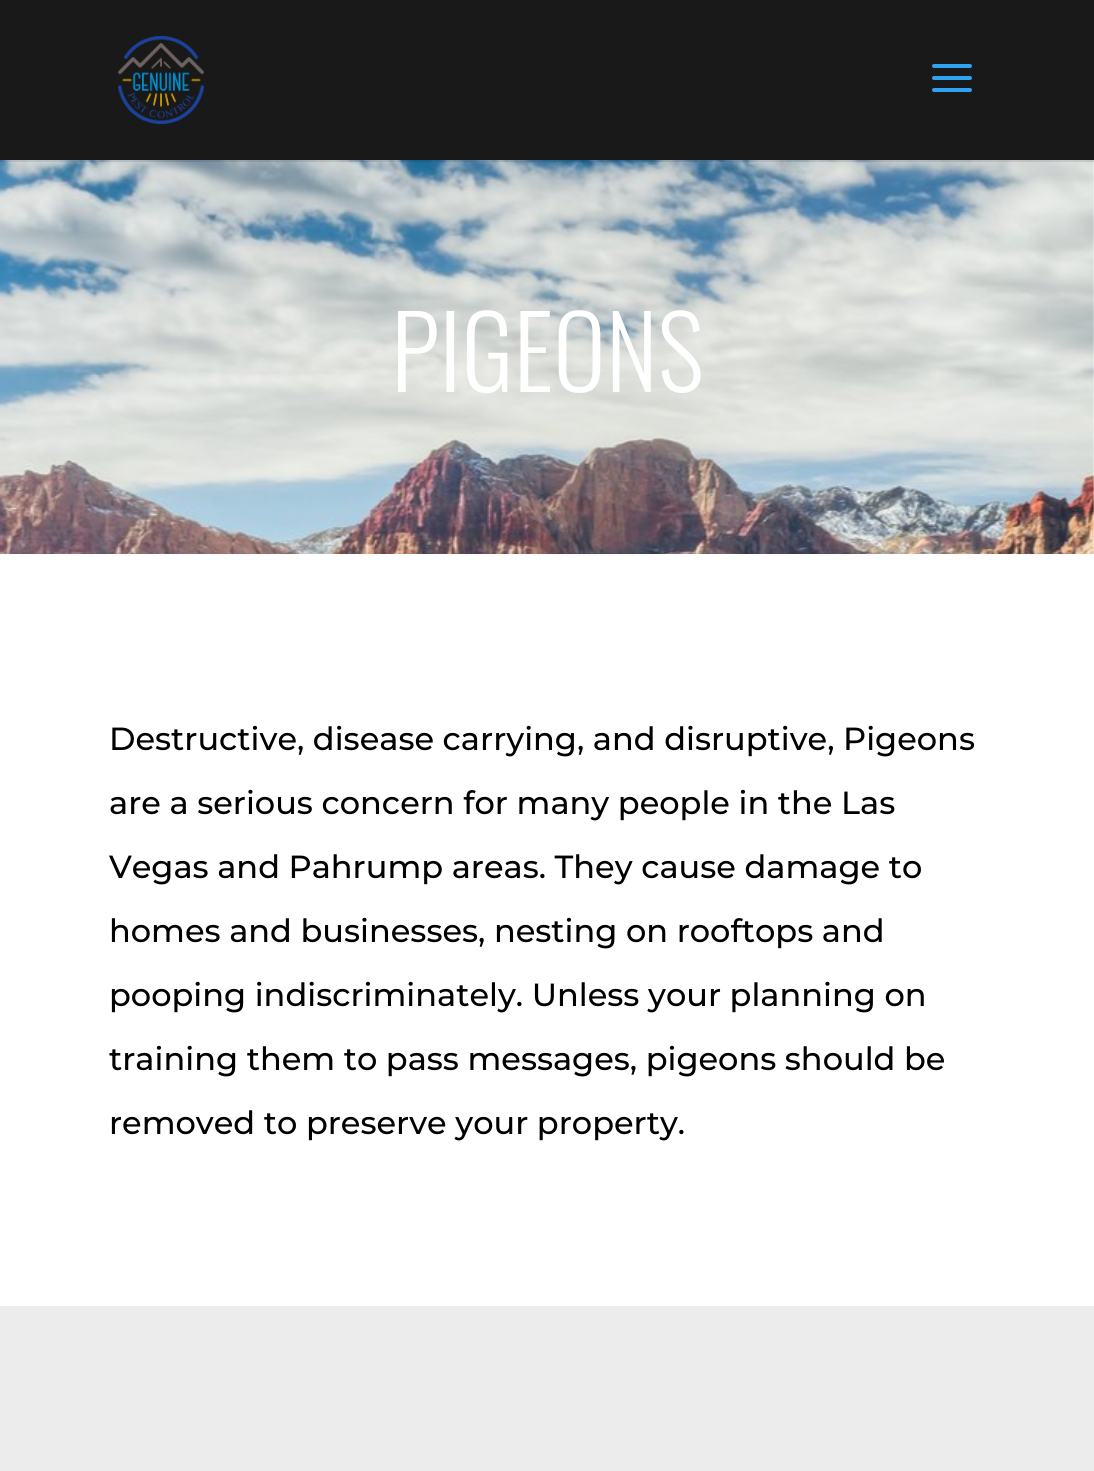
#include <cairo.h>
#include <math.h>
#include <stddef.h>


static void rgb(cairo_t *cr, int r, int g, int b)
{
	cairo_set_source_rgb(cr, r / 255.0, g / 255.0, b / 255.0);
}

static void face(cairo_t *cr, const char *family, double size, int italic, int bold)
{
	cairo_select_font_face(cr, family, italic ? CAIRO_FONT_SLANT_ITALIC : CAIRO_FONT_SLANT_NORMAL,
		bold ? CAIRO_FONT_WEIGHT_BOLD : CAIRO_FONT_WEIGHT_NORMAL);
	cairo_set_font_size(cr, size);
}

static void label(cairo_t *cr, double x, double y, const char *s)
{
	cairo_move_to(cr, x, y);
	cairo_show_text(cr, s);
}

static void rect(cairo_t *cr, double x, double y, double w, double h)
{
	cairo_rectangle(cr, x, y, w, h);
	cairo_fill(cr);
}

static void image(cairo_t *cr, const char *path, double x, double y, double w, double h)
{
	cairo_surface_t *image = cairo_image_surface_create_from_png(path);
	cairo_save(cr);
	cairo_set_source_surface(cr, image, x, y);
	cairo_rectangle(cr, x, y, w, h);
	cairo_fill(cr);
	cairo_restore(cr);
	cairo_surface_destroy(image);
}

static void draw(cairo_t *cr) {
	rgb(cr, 255, 255, 255);
	cairo_paint(cr);
	image(cr, "image2.png", 0, 160, 1094, 394);
	cairo_set_source_rgba(cr, 0, 0, 0, 0.1);
	rect(cr, 0, 160, 1094, 2);
	rgb(cr, 25, 25, 25);
	rect(cr, 0, 0, 1094, 160);
	image(cr, "image0.png", 118, 36, 86, 88);
	image(cr, "image1.png", 932, 64, 40, 28);
	face(cr, "Oswald Light", 100, 0, 0);
	rgb(cr, 255, 255, 255);
	label(cr, 391, 392, "PIGEONS");
	face(cr, "Montserrat Medium", 32, 0, 0);
	rgb(cr, 0, 0, 0);
	label(cr, 109, 750, "Destructive, disease carrying, and disruptive, Pigeons");
	label(cr, 109, 814, "are a serious concern for many people in the Las");
	label(cr, 109, 878, "Vegas and Pahrump areas. They cause damage to");
	label(cr, 109, 942, "homes and businesses, nesting on rooftops and");
	label(cr, 109, 1006, "pooping indiscriminately. Unless your planning on");
	label(cr, 109, 1070, "training them to pass messages, pigeons should be");
	label(cr, 109, 1134, "removed to preserve your property.");
	rgb(cr, 236, 236, 236);
	rect(cr, 0, 1306, 1094, 165);
}

int main(void) {
	cairo_surface_t *surface = cairo_image_surface_create(CAIRO_FORMAT_RGB24, 1094, 1471);
	cairo_t *cr = cairo_create(surface);
	cairo_font_options_t *options = cairo_font_options_create();
	cairo_font_options_set_hint_metrics(options, CAIRO_HINT_METRICS_OFF);
	cairo_font_options_set_hint_style(options, CAIRO_HINT_STYLE_NONE);
	cairo_set_font_options(cr, options);
	cairo_set_miter_limit(cr, 4);
	draw(cr);
	cairo_surface_write_to_png(surface, "render.png");
	cairo_font_options_destroy(options);
	cairo_destroy(cr);
	cairo_surface_destroy(surface);
	return 0;
}
